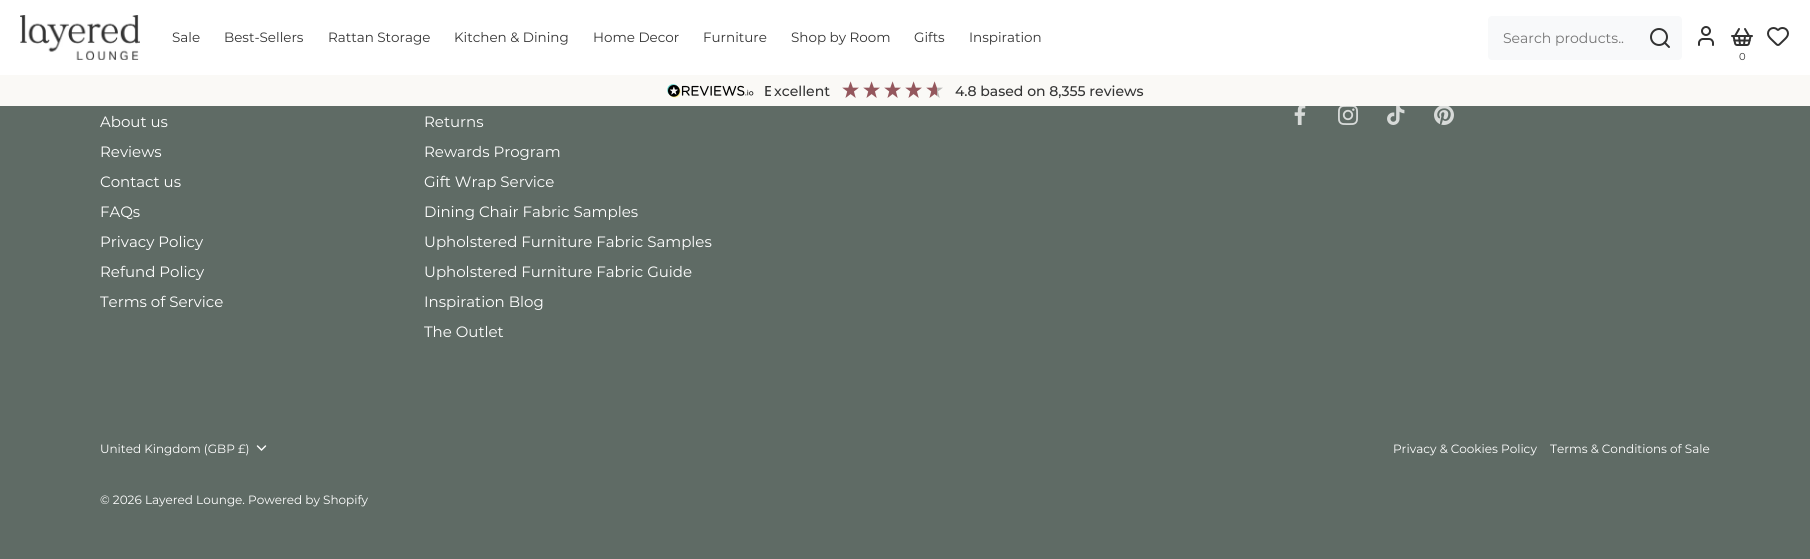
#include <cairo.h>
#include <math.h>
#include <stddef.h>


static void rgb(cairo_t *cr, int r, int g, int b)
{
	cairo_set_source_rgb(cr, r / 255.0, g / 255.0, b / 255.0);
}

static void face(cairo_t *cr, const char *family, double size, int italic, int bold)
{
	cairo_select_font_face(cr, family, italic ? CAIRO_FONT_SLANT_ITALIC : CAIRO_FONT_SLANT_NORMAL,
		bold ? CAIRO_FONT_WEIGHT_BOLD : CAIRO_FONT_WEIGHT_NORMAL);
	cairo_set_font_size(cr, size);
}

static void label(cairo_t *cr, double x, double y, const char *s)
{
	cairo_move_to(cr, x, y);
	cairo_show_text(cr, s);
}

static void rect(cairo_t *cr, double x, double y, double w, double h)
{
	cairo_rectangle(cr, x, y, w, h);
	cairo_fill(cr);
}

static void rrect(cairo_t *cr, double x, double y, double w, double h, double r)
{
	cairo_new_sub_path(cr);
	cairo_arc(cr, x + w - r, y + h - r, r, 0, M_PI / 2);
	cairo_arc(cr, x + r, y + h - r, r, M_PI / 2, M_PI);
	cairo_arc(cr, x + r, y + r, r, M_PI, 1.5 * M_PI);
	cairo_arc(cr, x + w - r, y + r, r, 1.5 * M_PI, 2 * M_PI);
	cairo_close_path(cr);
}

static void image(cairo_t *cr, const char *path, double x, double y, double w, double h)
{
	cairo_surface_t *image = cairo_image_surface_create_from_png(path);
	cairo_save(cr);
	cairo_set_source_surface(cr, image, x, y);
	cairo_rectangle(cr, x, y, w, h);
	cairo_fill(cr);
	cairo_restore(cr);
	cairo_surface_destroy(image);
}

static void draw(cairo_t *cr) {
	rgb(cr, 95, 107, 101);
	cairo_paint(cr);
	rgb(cr, 255, 255, 255);
	rect(cr, 0, 0, 1810, 75);
	image(cr, "image0.png", 20, 15, 120, 45);
	face(cr, "Montserrat", 13.5, 0, 0);
	rgb(cr, 52, 52, 52);
	label(cr, 172, 42, "Sale");
	label(cr, 224, 42, "Best-Sellers");
	label(cr, 328, 42, "Rattan Storage");
	label(cr, 454, 42, "Kitchen & Dining");
	label(cr, 593, 42, "Home Decor");
	label(cr, 703, 42, "Furniture");
	label(cr, 791, 42, "Shop by Room");
	label(cr, 914, 42, "Gifts");
	label(cr, 969, 42, "Inspiration");
	rgb(cr, 248, 249, 250);
	rrect(cr, 1488, 16, 194, 44, 4);
	cairo_fill(cr);
	face(cr, "Montserrat", 14, 0, 0);
	rgb(cr, 117, 117, 117);
	label(cr, 1503, 43, "Search products..");
	cairo_new_path(cr);
	cairo_move_to(cr, 1669, 47);
	cairo_line_to(cr, 1664.5, 42.5);
	rgb(cr, 50, 50, 50);
	cairo_set_line_cap(cr, CAIRO_LINE_CAP_ROUND);
	cairo_set_line_join(cr, CAIRO_LINE_JOIN_ROUND);
	cairo_stroke(cr);
	cairo_arc(cr, 1659, 37, 8, 0, 2 * M_PI);
	cairo_set_line_cap(cr, CAIRO_LINE_CAP_BUTT);
	cairo_set_line_join(cr, CAIRO_LINE_JOIN_MITER);
	cairo_stroke(cr);
	image(cr, "image1.png", 1698, 26, 16, 20);
	image(cr, "image2.png", 1767, 27, 22, 19);
	image(cr, "image3.png", 1731, 28, 22, 18);
	face(cr, "Montserrat", 10, 0, 0);
	rgb(cr, 52, 52, 52);
	label(cr, 1739, 60, "0");
	rgb(cr, 250, 249, 246);
	rect(cr, 0, 75, 1810, 31);
	image(cr, "image4.png", 667, 84, 87, 14);
	face(cr, "Noto Sans Medium", 14, 0, 0);
	rgb(cr, 52, 52, 52);
	label(cr, 764, 96, "E");
	face(cr, "Montserrat Medium", 14, 0, 0);
	label(cr, 774, 96, "xcellent");
	image(cr, "image5.png", 842, 81, 17, 17);
	image(cr, "image5.png", 863, 81, 17, 17);
	image(cr, "image5.png", 884, 81, 17, 17);
	image(cr, "image5.png", 905, 81, 17, 17);
	image(cr, "image6.png", 926, 81, 17, 17);
	label(cr, 955, 96, "4.8 based on 8,355 reviews");
	face(cr, "Montserrat", 15, 0, 0);
	rgb(cr, 255, 255, 255);
	label(cr, 100, 127, "About us");
	label(cr, 100, 157, "Reviews");
	label(cr, 100, 187, "Contact us");
	label(cr, 100, 217, "FAQs");
	label(cr, 100, 247, "Privacy Policy");
	label(cr, 100, 277, "Refund Policy");
	label(cr, 100, 307, "Terms of Service");
	label(cr, 424, 127, "Returns");
	label(cr, 424, 157, "Rewards Program");
	label(cr, 424, 187, "Gift Wrap Service");
	label(cr, 424, 217, "Dining Chair Fabric Samples");
	label(cr, 424, 247, "Upholstered Furniture Fabric Samples");
	label(cr, 424, 277, "Upholstered Furniture Fabric Guide");
	label(cr, 424, 307, "Inspiration Blog");
	label(cr, 424, 337, "The Outlet");
	image(cr, "image7.png", 1294, 106, 12, 19);
	image(cr, "image8.png", 1338, 106, 20, 19);
	image(cr, "image9.png", 1387, 106, 18, 19);
	image(cr, "image10.png", 1434, 106, 20, 19);
	face(cr, "Montserrat", 12, 0, 0);
	label(cr, 100, 453, "United Kingdom (GBP £)");
	cairo_new_path(cr);
	cairo_move_to(cr, 257.5, 446);
	cairo_line_to(cr, 261.5, 450);
	cairo_line_to(cr, 265.5, 446);
	cairo_set_line_width(cr, 1.4);
	cairo_set_line_cap(cr, CAIRO_LINE_CAP_ROUND);
	cairo_stroke(cr);
	label(cr, 100, 504, "© 2026 Layered Lounge. Powered by Shopify");
	label(cr, 1393, 453, "Privacy & Cookies Policy");
	label(cr, 1550, 453, "Terms & Conditions of Sale");
}

int main(void) {
	cairo_surface_t *surface = cairo_image_surface_create(CAIRO_FORMAT_RGB24, 1810, 559);
	cairo_t *cr = cairo_create(surface);
	cairo_font_options_t *options = cairo_font_options_create();
	cairo_font_options_set_hint_metrics(options, CAIRO_HINT_METRICS_OFF);
	cairo_font_options_set_hint_style(options, CAIRO_HINT_STYLE_NONE);
	cairo_set_font_options(cr, options);
	cairo_set_miter_limit(cr, 4);
	draw(cr);
	cairo_surface_write_to_png(surface, "render.png");
	cairo_font_options_destroy(options);
	cairo_destroy(cr);
	cairo_surface_destroy(surface);
	return 0;
}
